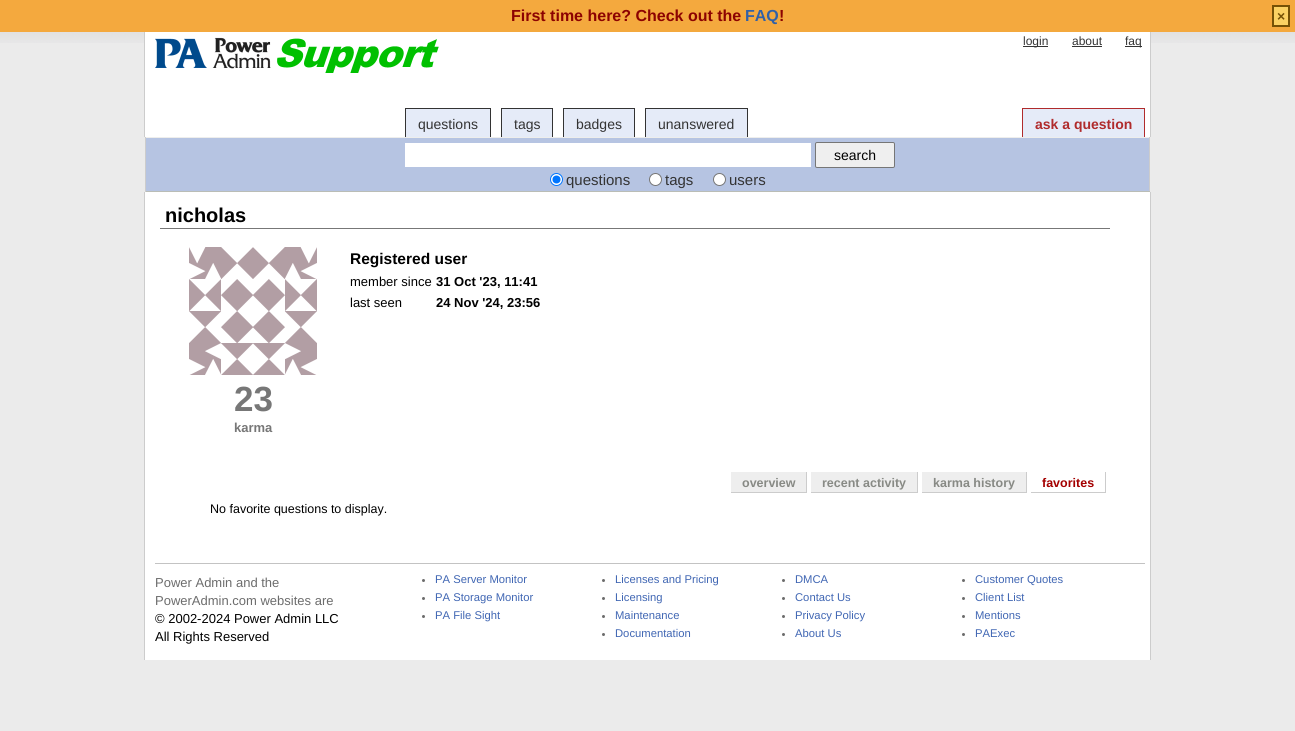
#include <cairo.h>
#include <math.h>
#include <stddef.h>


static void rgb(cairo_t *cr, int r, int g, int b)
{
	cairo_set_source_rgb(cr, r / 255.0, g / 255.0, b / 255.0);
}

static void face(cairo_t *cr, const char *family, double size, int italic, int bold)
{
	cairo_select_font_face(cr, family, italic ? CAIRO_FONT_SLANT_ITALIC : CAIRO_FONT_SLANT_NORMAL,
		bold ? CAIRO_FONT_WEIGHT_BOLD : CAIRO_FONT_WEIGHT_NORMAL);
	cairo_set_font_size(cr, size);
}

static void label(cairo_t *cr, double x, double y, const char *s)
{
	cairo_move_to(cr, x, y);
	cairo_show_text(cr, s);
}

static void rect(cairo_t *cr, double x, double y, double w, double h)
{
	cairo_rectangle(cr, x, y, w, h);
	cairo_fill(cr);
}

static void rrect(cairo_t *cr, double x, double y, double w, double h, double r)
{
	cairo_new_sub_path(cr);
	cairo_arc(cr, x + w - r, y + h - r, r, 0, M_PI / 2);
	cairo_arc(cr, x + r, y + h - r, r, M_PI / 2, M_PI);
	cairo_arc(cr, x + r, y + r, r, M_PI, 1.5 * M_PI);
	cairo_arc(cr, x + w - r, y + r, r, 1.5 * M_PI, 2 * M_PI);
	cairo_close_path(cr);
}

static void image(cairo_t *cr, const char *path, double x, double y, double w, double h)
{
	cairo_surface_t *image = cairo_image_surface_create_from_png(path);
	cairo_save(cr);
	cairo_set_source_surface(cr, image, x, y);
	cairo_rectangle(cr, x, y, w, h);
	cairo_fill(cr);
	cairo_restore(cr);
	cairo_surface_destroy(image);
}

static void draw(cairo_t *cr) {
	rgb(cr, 235, 235, 235);
	cairo_paint(cr);
	image(cr, "image0.png", 0, 0, 1295, 43);
	rgb(cr, 255, 255, 255);
	rect(cr, 145, 30, 1005, 107);
	rgb(cr, 204, 204, 204);
	rect(cr, 1150, 30, 1, 107);
	rect(cr, 144, 30, 1, 107);
	cairo_set_source_rgba(cr, 0.957, 0.659, 0.239, 0.99);
	rect(cr, 0, 0, 1295, 32);
	face(cr, "Liberation Sans", 16, 0, 1);
	rgb(cr, 140, 2, 1);
	label(cr, 511, 21, "First time here? Check out the");
	rgb(cr, 50, 97, 167);
	label(cr, 745, 21, "FAQ");
	rgb(cr, 140, 2, 1);
	label(cr, 779, 21, "!");
	rgb(cr, 250, 209, 99);
	cairo_rectangle(cr, 1273, 6, 16, 20);
	cairo_fill_preserve(cr);
	rgb(cr, 117, 81, 6);
	cairo_stroke(cr);
	face(cr, "Liberation Sans", 14, 0, 1);
	label(cr, 1277, 21, "×");
	image(cr, "image1.png", 155, 37, 284, 36);
	rgb(cr, 51, 51, 51);
	rect(cr, 1023, 46, 25, 1);
	face(cr, "Liberation Sans", 12, 0, 0);
	label(cr, 1023, 45, "login");
	label(cr, 1072, 45, "about");
	rect(cr, 1072, 46, 30, 1);
	rect(cr, 1125, 46, 17, 1);
	label(cr, 1125, 45, "faq");
	rgb(cr, 229, 235, 248);
	rect(cr, 406, 109, 84, 28);
	rgb(cr, 51, 51, 51);
	rect(cr, 405, 108, 86, 1);
	rect(cr, 490, 108, 1, 29);
	rect(cr, 405, 108, 1, 29);
	face(cr, "Liberation Sans", 14, 0, 0);
	label(cr, 418, 129, "questions");
	rgb(cr, 229, 235, 248);
	rect(cr, 502, 109, 50, 28);
	rgb(cr, 51, 51, 51);
	rect(cr, 501, 108, 52, 1);
	rect(cr, 552, 108, 1, 29);
	rect(cr, 501, 108, 1, 29);
	label(cr, 514, 129, "tags");
	rgb(cr, 229, 235, 248);
	rect(cr, 564, 109, 70, 28);
	rgb(cr, 51, 51, 51);
	rect(cr, 563, 108, 72, 1);
	rect(cr, 634, 108, 1, 29);
	rect(cr, 563, 108, 1, 29);
	label(cr, 576, 129, "badges");
	rgb(cr, 229, 235, 248);
	rect(cr, 646, 109, 101, 28);
	rgb(cr, 51, 51, 51);
	rect(cr, 645, 108, 103, 1);
	rect(cr, 747, 108, 1, 29);
	rect(cr, 645, 108, 1, 29);
	label(cr, 658, 129, "unanswered");
	rgb(cr, 229, 235, 248);
	rect(cr, 1023, 109, 121, 28);
	rgb(cr, 176, 43, 44);
	rect(cr, 1022, 108, 123, 1);
	rect(cr, 1144, 108, 1, 29);
	rect(cr, 1022, 108, 1, 29);
	face(cr, "Liberation Sans", 14, 0, 1);
	label(cr, 1035, 129, "ask a question");
	rgb(cr, 182, 196, 226);
	rect(cr, 146, 138, 1003, 53);
	rgb(cr, 238, 238, 236);
	rect(cr, 145, 137, 1005, 1);
	rgb(cr, 204, 204, 204);
	rect(cr, 1149, 137, 1, 55);
	rgb(cr, 186, 189, 182);
	rect(cr, 145, 191, 1005, 1);
	rgb(cr, 204, 204, 204);
	rect(cr, 145, 137, 1, 55);
	rgb(cr, 255, 255, 255);
	rect(cr, 405, 143, 406, 24);
	rgb(cr, 239, 239, 239);
	rrect(cr, 815.5, 142.5, 79, 25, 1.5);
	cairo_fill_preserve(cr);
	rgb(cr, 118, 118, 118);
	cairo_set_line_width(cr, 1);
	cairo_stroke(cr);
	face(cr, "Liberation Sans", 14, 0, 0);
	rgb(cr, 0, 0, 0);
	label(cr, 834, 160, "search");
	rgb(cr, 255, 255, 255);
	cairo_new_path(cr);
	cairo_arc(cr, 556.5, 179.5, 6, 0, 2 * M_PI);
	cairo_fill_preserve(cr);
	rgb(cr, 0, 117, 255);
	cairo_stroke(cr);
	cairo_arc(cr, 556.5, 179.5, 4, 0, 2 * M_PI);
	cairo_fill(cr);
	face(cr, "Liberation Sans", 15, 0, 0);
	rgb(cr, 51, 51, 51);
	label(cr, 566, 185, "questions");
	rgb(cr, 255, 255, 255);
	cairo_new_path(cr);
	cairo_arc(cr, 655.5, 179.5, 6, 0, 2 * M_PI);
	cairo_fill_preserve(cr);
	rgb(cr, 118, 118, 118);
	cairo_stroke(cr);
	rgb(cr, 51, 51, 51);
	label(cr, 665, 185, "tags");
	rgb(cr, 255, 255, 255);
	cairo_new_path(cr);
	cairo_arc(cr, 719.5, 179.5, 6, 0, 2 * M_PI);
	cairo_fill_preserve(cr);
	rgb(cr, 118, 118, 118);
	cairo_stroke(cr);
	rgb(cr, 51, 51, 51);
	label(cr, 729, 185, "users");
	rgb(cr, 255, 255, 255);
	rect(cr, 145, 192, 1005, 468);
	rgb(cr, 204, 204, 204);
	rect(cr, 1150, 192, 1, 468);
	rect(cr, 144, 192, 1, 468);
	rgb(cr, 119, 119, 119);
	rect(cr, 160, 228, 950, 1);
	face(cr, "Liberation Sans", 20, 0, 1);
	rgb(cr, 0, 0, 0);
	label(cr, 165, 222, "nicholas");
	face(cr, "Liberation Sans", 15.5, 0, 1);
	label(cr, 350, 264, "Registered user");
	face(cr, "Liberation Sans", 13, 0, 0);
	label(cr, 350, 286, "member since");
	face(cr, "Liberation Sans", 13, 0, 1);
	label(cr, 436, 286, "31 Oct '23, 11:41");
	face(cr, "Liberation Sans", 13, 0, 0);
	label(cr, 350, 307, "last seen");
	face(cr, "Liberation Sans", 13, 0, 1);
	label(cr, 436, 307, "24 Nov '24, 23:56");
	image(cr, "image2.png", 189, 247, 128, 128);
	face(cr, "Liberation Sans", 35, 0, 1);
	rgb(cr, 119, 119, 119);
	label(cr, 234, 411, "23");
	face(cr, "Liberation Sans", 13, 0, 1);
	label(cr, 234, 432, "karma");
	rgb(cr, 238, 238, 238);
	rect(cr, 731, 472, 75, 20);
	rgb(cr, 204, 204, 204);
	rect(cr, 806, 472, 1, 21);
	rect(cr, 731, 492, 76, 1);
	face(cr, "Liberation Sans", 12.5, 0, 1);
	rgb(cr, 136, 138, 133);
	label(cr, 742, 487, "overview");
	rgb(cr, 238, 238, 238);
	rect(cr, 811, 472, 106, 20);
	rgb(cr, 204, 204, 204);
	rect(cr, 917, 472, 1, 21);
	rect(cr, 811, 492, 107, 1);
	rgb(cr, 136, 138, 133);
	label(cr, 822, 487, "recent activity");
	rgb(cr, 238, 238, 238);
	rect(cr, 922, 472, 104, 20);
	rgb(cr, 204, 204, 204);
	rect(cr, 1026, 472, 1, 21);
	rect(cr, 922, 492, 105, 1);
	rgb(cr, 136, 138, 133);
	label(cr, 933, 487, "karma history");
	rgb(cr, 204, 204, 204);
	rect(cr, 1105, 472, 1, 21);
	rect(cr, 1031, 492, 75, 1);
	rgb(cr, 164, 0, 0);
	label(cr, 1042, 487, "favorites");
	face(cr, "Liberation Sans", 12.5, 0, 0);
	rgb(cr, 0, 0, 0);
	label(cr, 210, 513, "No favorite questions to display.");
	rgb(cr, 195, 195, 195);
	rect(cr, 155, 563, 990, 1);
	face(cr, "Liberation Sans", 13, 0, 0);
	rgb(cr, 108, 108, 108);
	label(cr, 155, 587, "Power Admin and the");
	label(cr, 155, 605, "PowerAdmin.com websites are");
	rgb(cr, 0, 0, 0);
	label(cr, 155, 623, "© 2002-2024 Power Admin LLC");
	label(cr, 155, 641, "All Rights Reserved");
	rgb(cr, 108, 108, 108);
	cairo_new_path(cr);
	cairo_arc(cr, 423.5, 580.5, 1.5, 0, 2 * M_PI);
	cairo_fill(cr);
	face(cr, "Liberation Sans", 11.25, 0, 0);
	rgb(cr, 64, 102, 179);
	label(cr, 435, 583, "PA Server Monitor");
	rgb(cr, 108, 108, 108);
	cairo_new_path(cr);
	cairo_arc(cr, 423.5, 598.5, 1.5, 0, 2 * M_PI);
	cairo_fill(cr);
	rgb(cr, 64, 102, 179);
	label(cr, 435, 601, "PA Storage Monitor");
	rgb(cr, 108, 108, 108);
	cairo_new_path(cr);
	cairo_arc(cr, 423.5, 616.5, 1.5, 0, 2 * M_PI);
	cairo_fill(cr);
	rgb(cr, 64, 102, 179);
	label(cr, 435, 619, "PA File Sight");
	rgb(cr, 108, 108, 108);
	cairo_new_path(cr);
	cairo_arc(cr, 603.5, 580.5, 1.5, 0, 2 * M_PI);
	cairo_fill(cr);
	rgb(cr, 64, 102, 179);
	label(cr, 615, 583, "Licenses and Pricing");
	rgb(cr, 108, 108, 108);
	cairo_new_path(cr);
	cairo_arc(cr, 603.5, 598.5, 1.5, 0, 2 * M_PI);
	cairo_fill(cr);
	rgb(cr, 64, 102, 179);
	label(cr, 615, 601, "Licensing");
	rgb(cr, 108, 108, 108);
	cairo_new_path(cr);
	cairo_arc(cr, 603.5, 616.5, 1.5, 0, 2 * M_PI);
	cairo_fill(cr);
	rgb(cr, 64, 102, 179);
	label(cr, 615, 619, "Maintenance");
	rgb(cr, 108, 108, 108);
	cairo_new_path(cr);
	cairo_arc(cr, 603.5, 634.5, 1.5, 0, 2 * M_PI);
	cairo_fill(cr);
	rgb(cr, 64, 102, 179);
	label(cr, 615, 637, "Documentation");
	rgb(cr, 108, 108, 108);
	cairo_new_path(cr);
	cairo_arc(cr, 783.5, 580.5, 1.5, 0, 2 * M_PI);
	cairo_fill(cr);
	rgb(cr, 64, 102, 179);
	label(cr, 795, 583, "DMCA");
	rgb(cr, 108, 108, 108);
	cairo_new_path(cr);
	cairo_arc(cr, 783.5, 598.5, 1.5, 0, 2 * M_PI);
	cairo_fill(cr);
	rgb(cr, 64, 102, 179);
	label(cr, 795, 601, "Contact Us");
	rgb(cr, 108, 108, 108);
	cairo_new_path(cr);
	cairo_arc(cr, 783.5, 616.5, 1.5, 0, 2 * M_PI);
	cairo_fill(cr);
	rgb(cr, 64, 102, 179);
	label(cr, 795, 619, "Privacy Policy");
	rgb(cr, 108, 108, 108);
	cairo_new_path(cr);
	cairo_arc(cr, 783.5, 634.5, 1.5, 0, 2 * M_PI);
	cairo_fill(cr);
	rgb(cr, 64, 102, 179);
	label(cr, 795, 637, "About Us");
	rgb(cr, 108, 108, 108);
	cairo_new_path(cr);
	cairo_arc(cr, 963.5, 580.5, 1.5, 0, 2 * M_PI);
	cairo_fill(cr);
	rgb(cr, 64, 102, 179);
	label(cr, 975, 583, "Customer Quotes");
	rgb(cr, 108, 108, 108);
	cairo_new_path(cr);
	cairo_arc(cr, 963.5, 598.5, 1.5, 0, 2 * M_PI);
	cairo_fill(cr);
	rgb(cr, 64, 102, 179);
	label(cr, 975, 601, "Client List");
	rgb(cr, 108, 108, 108);
	cairo_new_path(cr);
	cairo_arc(cr, 963.5, 616.5, 1.5, 0, 2 * M_PI);
	cairo_fill(cr);
	rgb(cr, 64, 102, 179);
	label(cr, 975, 619, "Mentions");
	rgb(cr, 108, 108, 108);
	cairo_new_path(cr);
	cairo_arc(cr, 963.5, 634.5, 1.5, 0, 2 * M_PI);
	cairo_fill(cr);
	rgb(cr, 64, 102, 179);
	label(cr, 975, 637, "PAExec");
}

int main(void) {
	cairo_surface_t *surface = cairo_image_surface_create(CAIRO_FORMAT_RGB24, 1295, 731);
	cairo_t *cr = cairo_create(surface);
	cairo_font_options_t *options = cairo_font_options_create();
	cairo_font_options_set_hint_metrics(options, CAIRO_HINT_METRICS_OFF);
	cairo_font_options_set_hint_style(options, CAIRO_HINT_STYLE_NONE);
	cairo_set_font_options(cr, options);
	cairo_set_miter_limit(cr, 4);
	draw(cr);
	cairo_surface_write_to_png(surface, "render.png");
	cairo_font_options_destroy(options);
	cairo_destroy(cr);
	cairo_surface_destroy(surface);
	return 0;
}
